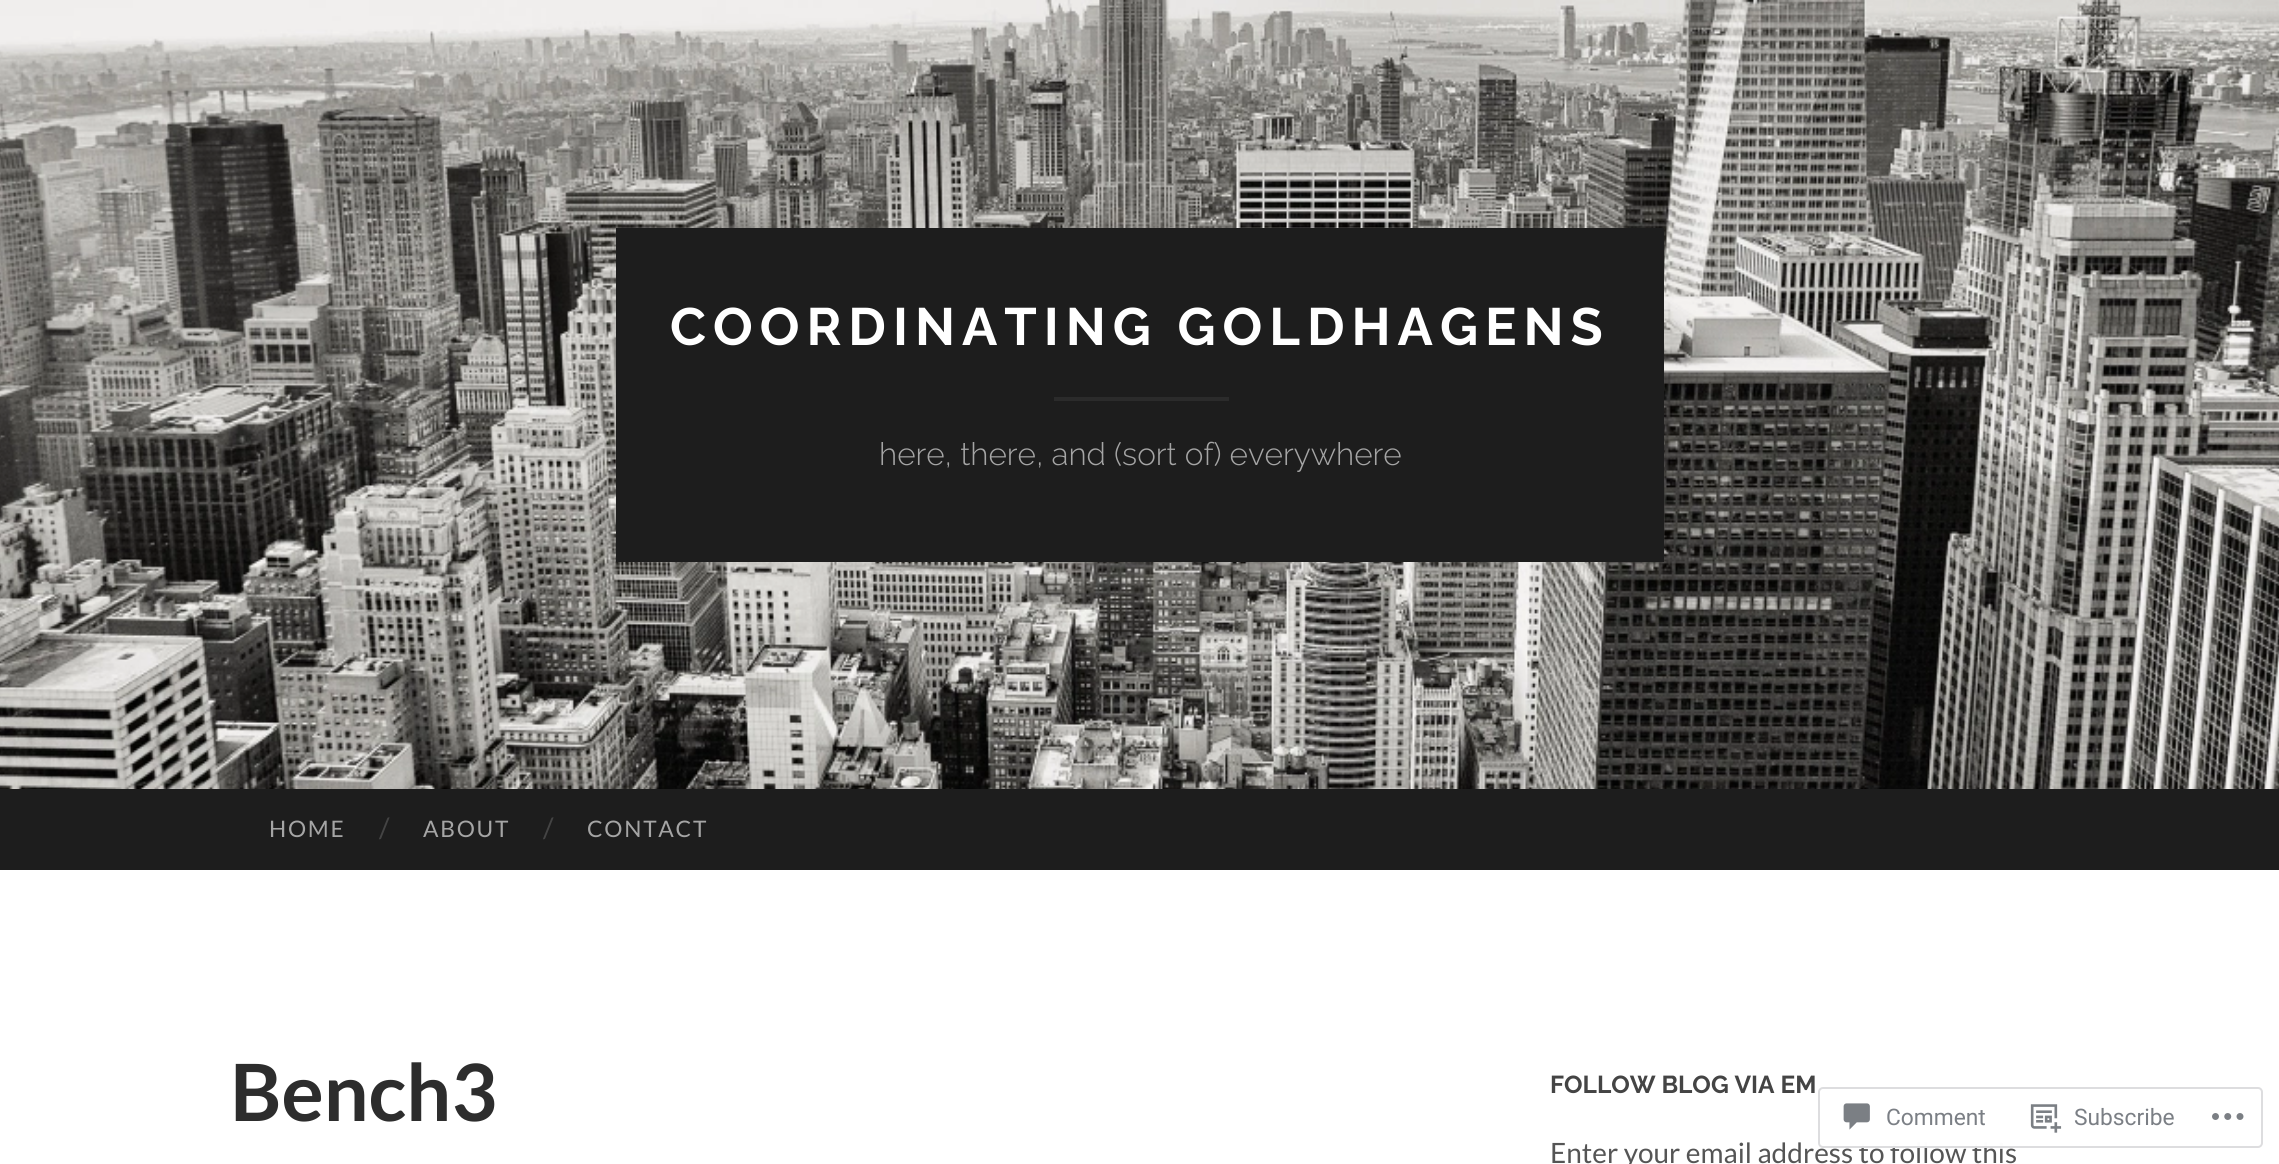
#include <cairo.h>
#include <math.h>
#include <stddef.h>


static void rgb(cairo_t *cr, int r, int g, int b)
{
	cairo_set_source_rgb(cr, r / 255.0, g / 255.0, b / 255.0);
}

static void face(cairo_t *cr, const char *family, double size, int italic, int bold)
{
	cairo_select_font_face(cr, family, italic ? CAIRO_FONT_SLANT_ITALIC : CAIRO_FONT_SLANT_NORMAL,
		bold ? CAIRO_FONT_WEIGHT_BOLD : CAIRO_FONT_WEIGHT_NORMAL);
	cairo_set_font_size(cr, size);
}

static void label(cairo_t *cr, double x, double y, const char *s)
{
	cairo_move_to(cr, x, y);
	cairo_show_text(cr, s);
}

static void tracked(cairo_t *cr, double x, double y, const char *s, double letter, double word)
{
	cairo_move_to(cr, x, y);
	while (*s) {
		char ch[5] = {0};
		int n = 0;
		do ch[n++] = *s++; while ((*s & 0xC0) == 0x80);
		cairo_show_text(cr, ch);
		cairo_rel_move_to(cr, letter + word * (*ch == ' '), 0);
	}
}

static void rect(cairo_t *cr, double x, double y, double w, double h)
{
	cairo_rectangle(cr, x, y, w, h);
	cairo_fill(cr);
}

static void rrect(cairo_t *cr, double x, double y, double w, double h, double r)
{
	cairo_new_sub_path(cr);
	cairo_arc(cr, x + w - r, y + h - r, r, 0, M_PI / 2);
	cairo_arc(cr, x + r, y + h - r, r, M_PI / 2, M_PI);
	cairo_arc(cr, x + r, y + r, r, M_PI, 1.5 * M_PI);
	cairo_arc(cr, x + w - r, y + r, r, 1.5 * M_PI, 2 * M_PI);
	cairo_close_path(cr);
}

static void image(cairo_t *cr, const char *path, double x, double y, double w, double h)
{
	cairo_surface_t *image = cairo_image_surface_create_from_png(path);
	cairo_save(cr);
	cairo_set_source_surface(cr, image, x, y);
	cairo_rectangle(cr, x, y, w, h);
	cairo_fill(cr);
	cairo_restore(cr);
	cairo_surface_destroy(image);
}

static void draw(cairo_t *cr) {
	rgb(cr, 255, 255, 255);
	cairo_paint(cr);
	image(cr, "image0.png", 0, 0, 2279, 789);
	rgb(cr, 29, 29, 29);
	rect(cr, 616, 228, 1048, 334);
	face(cr, "Raleway", 52.5, 0, 1);
	rgb(cr, 255, 255, 255);
	tracked(cr, 670, 345, "COORDINATING GOLDHAGENS", 7, 0);
	rgb(cr, 43, 43, 43);
	rect(cr, 1054, 397, 175, 4);
	face(cr, "Raleway Light", 31.5, 0, 0);
	rgb(cr, 165, 165, 165);
	label(cr, 879, 465, "here, there, and (sort of) everywhere");
	rgb(cr, 29, 29, 29);
	rect(cr, 0, 789, 2279, 81);
	face(cr, "Lato", 22.75, 0, 0);
	rgb(cr, 165, 165, 165);
	tracked(cr, 269, 837, "HOME", 1.75, 0);
	face(cr, "Lato", 28, 0, 0);
	rgb(cr, 68, 68, 68);
	label(cr, 379, 838, "/");
	face(cr, "Lato", 22.75, 0, 0);
	rgb(cr, 165, 165, 165);
	tracked(cr, 423, 837, "ABOUT", 1.75, 0);
	face(cr, "Lato", 28, 0, 0);
	rgb(cr, 68, 68, 68);
	label(cr, 543, 838, "/");
	face(cr, "Lato", 22.75, 0, 0);
	rgb(cr, 165, 165, 165);
	tracked(cr, 587, 837, "CONTACT", 1.75, 0);
	face(cr, "Lato", 79, 0, 1);
	rgb(cr, 45, 45, 45);
	label(cr, 230, 1121, "Bench3");
	face(cr, "Raleway", 24.5, 0, 1);
	rgb(cr, 68, 68, 68);
	label(cr, 1550, 1093, "FOLLOW BLOG VIA EM");
	face(cr, "Lato", 28, 0, 0);
	rgb(cr, 85, 85, 85);
	label(cr, 1550, 1163, "Enter your email address to follow this");
	cairo_set_source_rgba(cr, 1, 1, 1, 0.98);
	rrect(cr, 1818, 1087, 445, 61, 5);
	cairo_fill(cr);
	rrect(cr, 1819, 1088, 443, 59, 4);
	cairo_set_source_rgba(cr, 0.863, 0.863, 0.871, 0.98);
	cairo_stroke(cr);
	image(cr, "image1.png", 1843, 1103, 27, 27);
	face(cr, "Roboto", 22.75, 0, 0);
	rgb(cr, 123, 127, 133);
	label(cr, 1886, 1125, "Comment");
	image(cr, "image2.png", 2030, 1104, 32, 29);
	label(cr, 2074, 1125, "Subscribe");
	image(cr, "image3.png", 2212, 1113, 32, 7);
}

int main(void) {
	cairo_surface_t *surface = cairo_image_surface_create(CAIRO_FORMAT_RGB24, 2279, 1164);
	cairo_t *cr = cairo_create(surface);
	cairo_font_options_t *options = cairo_font_options_create();
	cairo_font_options_set_hint_metrics(options, CAIRO_HINT_METRICS_OFF);
	cairo_font_options_set_hint_style(options, CAIRO_HINT_STYLE_NONE);
	cairo_set_font_options(cr, options);
	cairo_set_miter_limit(cr, 4);
	draw(cr);
	cairo_surface_write_to_png(surface, "render.png");
	cairo_font_options_destroy(options);
	cairo_destroy(cr);
	cairo_surface_destroy(surface);
	return 0;
}
